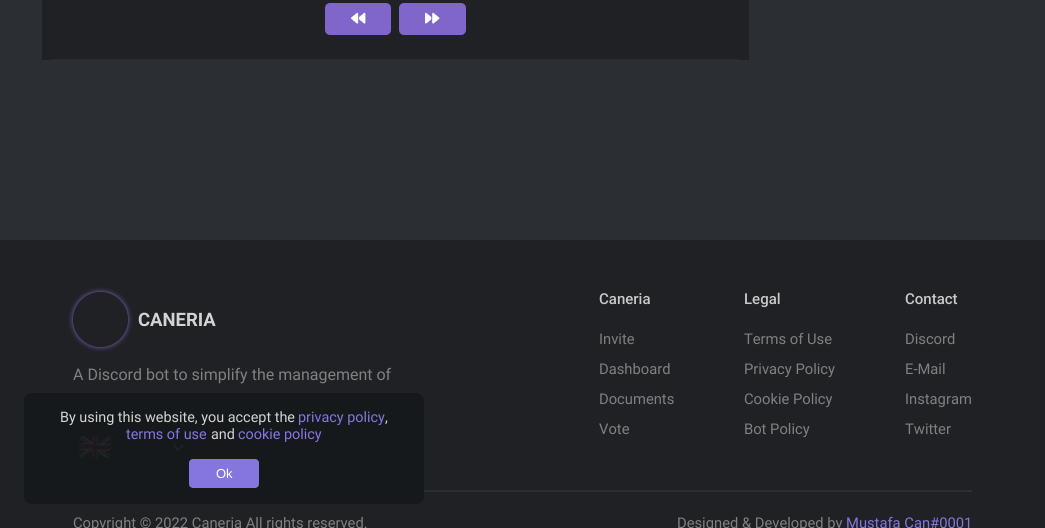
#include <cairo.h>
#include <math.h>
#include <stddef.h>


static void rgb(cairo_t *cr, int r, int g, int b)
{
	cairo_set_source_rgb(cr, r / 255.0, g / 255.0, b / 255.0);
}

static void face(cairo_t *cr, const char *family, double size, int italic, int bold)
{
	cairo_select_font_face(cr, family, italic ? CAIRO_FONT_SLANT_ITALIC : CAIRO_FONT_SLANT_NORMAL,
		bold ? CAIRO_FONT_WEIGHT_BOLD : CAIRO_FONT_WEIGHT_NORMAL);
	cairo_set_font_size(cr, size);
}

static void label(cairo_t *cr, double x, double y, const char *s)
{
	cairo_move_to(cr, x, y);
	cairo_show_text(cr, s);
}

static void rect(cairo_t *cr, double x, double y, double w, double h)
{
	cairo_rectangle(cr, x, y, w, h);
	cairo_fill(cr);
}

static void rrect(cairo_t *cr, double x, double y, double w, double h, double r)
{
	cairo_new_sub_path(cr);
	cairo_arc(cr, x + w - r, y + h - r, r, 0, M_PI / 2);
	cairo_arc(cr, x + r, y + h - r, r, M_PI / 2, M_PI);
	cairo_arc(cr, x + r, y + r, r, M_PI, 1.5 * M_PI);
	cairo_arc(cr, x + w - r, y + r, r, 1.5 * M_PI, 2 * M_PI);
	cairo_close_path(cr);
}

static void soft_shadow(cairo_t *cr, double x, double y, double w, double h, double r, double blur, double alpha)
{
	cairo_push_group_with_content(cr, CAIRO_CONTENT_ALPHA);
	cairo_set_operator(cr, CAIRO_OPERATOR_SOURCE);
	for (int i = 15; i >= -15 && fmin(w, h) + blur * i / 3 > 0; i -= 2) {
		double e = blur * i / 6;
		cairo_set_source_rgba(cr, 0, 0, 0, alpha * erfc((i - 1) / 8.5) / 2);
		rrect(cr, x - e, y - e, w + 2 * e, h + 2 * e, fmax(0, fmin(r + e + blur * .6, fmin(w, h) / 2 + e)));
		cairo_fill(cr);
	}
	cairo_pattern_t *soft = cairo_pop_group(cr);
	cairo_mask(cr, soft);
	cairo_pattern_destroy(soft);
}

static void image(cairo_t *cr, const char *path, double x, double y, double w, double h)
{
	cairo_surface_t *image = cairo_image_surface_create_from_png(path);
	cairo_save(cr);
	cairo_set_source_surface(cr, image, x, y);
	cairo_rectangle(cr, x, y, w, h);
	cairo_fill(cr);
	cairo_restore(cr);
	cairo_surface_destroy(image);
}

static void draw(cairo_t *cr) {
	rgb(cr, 43, 47, 51);
	cairo_paint(cr);
	rgb(cr, 31, 33, 36);
	rect(cr, 42, 0, 707, 60);
	rgb(cr, 39, 42, 46);
	rect(cr, 52, 59, 687, 1);
	rgb(cr, 128, 101, 202);
	rrect(cr, 325, 3, 66, 32, 5);
	cairo_fill(cr);
	image(cr, "image0.png", 351, 12, 15, 12);
	rrect(cr, 399, 3, 67, 32, 5);
	cairo_fill(cr);
	image(cr, "image1.png", 425, 12, 15, 12);
	rgb(cr, 31, 33, 36);
	rect(cr, 0, 240, 1045, 288);
	cairo_save(cr);
	cairo_set_fill_rule(cr, CAIRO_FILL_RULE_EVEN_ODD);
	cairo_new_path(cr);
	cairo_move_to(cr, 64, 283);
	cairo_line_to(cr, 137, 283);
	cairo_line_to(cr, 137, 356);
	cairo_line_to(cr, 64, 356);
	cairo_close_path(cr);
	cairo_move_to(cr, 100.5, 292);
	cairo_curve_to(cr, 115.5, 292, 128, 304.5, 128, 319.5);
	cairo_curve_to(cr, 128, 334.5, 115.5, 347, 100.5, 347);
	cairo_curve_to(cr, 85.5, 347, 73, 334.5, 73, 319.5);
	cairo_curve_to(cr, 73, 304.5, 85.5, 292, 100.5, 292);
	cairo_close_path(cr);
	cairo_clip(cr);
	rgb(cr, 128, 101, 202);
	soft_shadow(cr, 73, 292, 55, 55, 27.5, 2.5, 1);
	cairo_restore(cr);
	face(cr, "Roboto", 18.5, 0, 1);
	rgb(cr, 211, 211, 211);
	label(cr, 138, 326, "CANERIA");
	face(cr, "Roboto", 16, 0, 0);
	rgb(cr, 128, 128, 128);
	label(cr, 73, 380, "A Discord bot to simplify the management of");
	image(cr, "image2.png", 79, 435, 32, 24);
	image(cr, "image3.png", 172, 444, 12, 7);
	face(cr, "Roboto Medium", 15, 0, 0);
	rgb(cr, 201, 201, 201);
	label(cr, 599, 304, "Caneria");
	face(cr, "Roboto", 14.75, 0, 0);
	rgb(cr, 128, 128, 128);
	label(cr, 599, 344, "Invite");
	label(cr, 599, 374, "Dashboard");
	label(cr, 599, 404, "Documents");
	label(cr, 599, 434, "Vote");
	face(cr, "Roboto Medium", 15, 0, 0);
	rgb(cr, 201, 201, 201);
	label(cr, 744, 304, "Legal");
	face(cr, "Roboto", 14.75, 0, 0);
	rgb(cr, 128, 128, 128);
	label(cr, 744, 344, "Terms of Use");
	label(cr, 744, 374, "Privacy Policy");
	label(cr, 744, 404, "Cookie Policy");
	label(cr, 744, 434, "Bot Policy");
	face(cr, "Roboto Medium", 15, 0, 0);
	rgb(cr, 201, 201, 201);
	label(cr, 905, 304, "Contact");
	face(cr, "Roboto", 14.75, 0, 0);
	rgb(cr, 128, 128, 128);
	label(cr, 905, 344, "Discord");
	label(cr, 905, 374, "E-Mail");
	label(cr, 905, 404, "Instagram");
	label(cr, 905, 434, "Twitter");
	rgb(cr, 43, 47, 51);
	rect(cr, 73, 490, 899, 2);
	rgb(cr, 128, 128, 128);
	label(cr, 73, 528, "Copyright © 2022 Caneria All rights reserved.");
	label(cr, 677, 528, "Designed & Developed by");
	rgb(cr, 133, 117, 223);
	label(cr, 846, 528, "Mustafa Can#0001");
	cairo_set_source_rgba(cr, 0.09, 0.098, 0.106, 0.95);
	rrect(cr, 24, 393, 400, 111, 8);
	cairo_fill(cr);
	face(cr, "Roboto", 14.4, 0, 0);
	rgb(cr, 211, 211, 211);
	label(cr, 60, 422, "By using this website, you accept the");
	rgb(cr, 133, 117, 223);
	label(cr, 298, 422, "privacy policy");
	rgb(cr, 211, 211, 211);
	label(cr, 385, 422, ",");
	rgb(cr, 133, 117, 223);
	label(cr, 126, 439, "terms of use");
	rgb(cr, 211, 211, 211);
	label(cr, 211, 439, "and");
	rgb(cr, 133, 117, 223);
	label(cr, 238, 439, "cookie policy");
	rrect(cr, 189, 459, 70, 29, 4);
	cairo_fill(cr);
	face(cr, "Liberation Sans", 13, 0, 0);
	rgb(cr, 255, 255, 255);
	label(cr, 216, 478, "Ok");
}

int main(void) {
	cairo_surface_t *surface = cairo_image_surface_create(CAIRO_FORMAT_RGB24, 1045, 528);
	cairo_t *cr = cairo_create(surface);
	cairo_font_options_t *options = cairo_font_options_create();
	cairo_font_options_set_hint_metrics(options, CAIRO_HINT_METRICS_OFF);
	cairo_font_options_set_hint_style(options, CAIRO_HINT_STYLE_NONE);
	cairo_set_font_options(cr, options);
	cairo_set_miter_limit(cr, 4);
	draw(cr);
	cairo_surface_write_to_png(surface, "render.png");
	cairo_font_options_destroy(options);
	cairo_destroy(cr);
	cairo_surface_destroy(surface);
	return 0;
}
